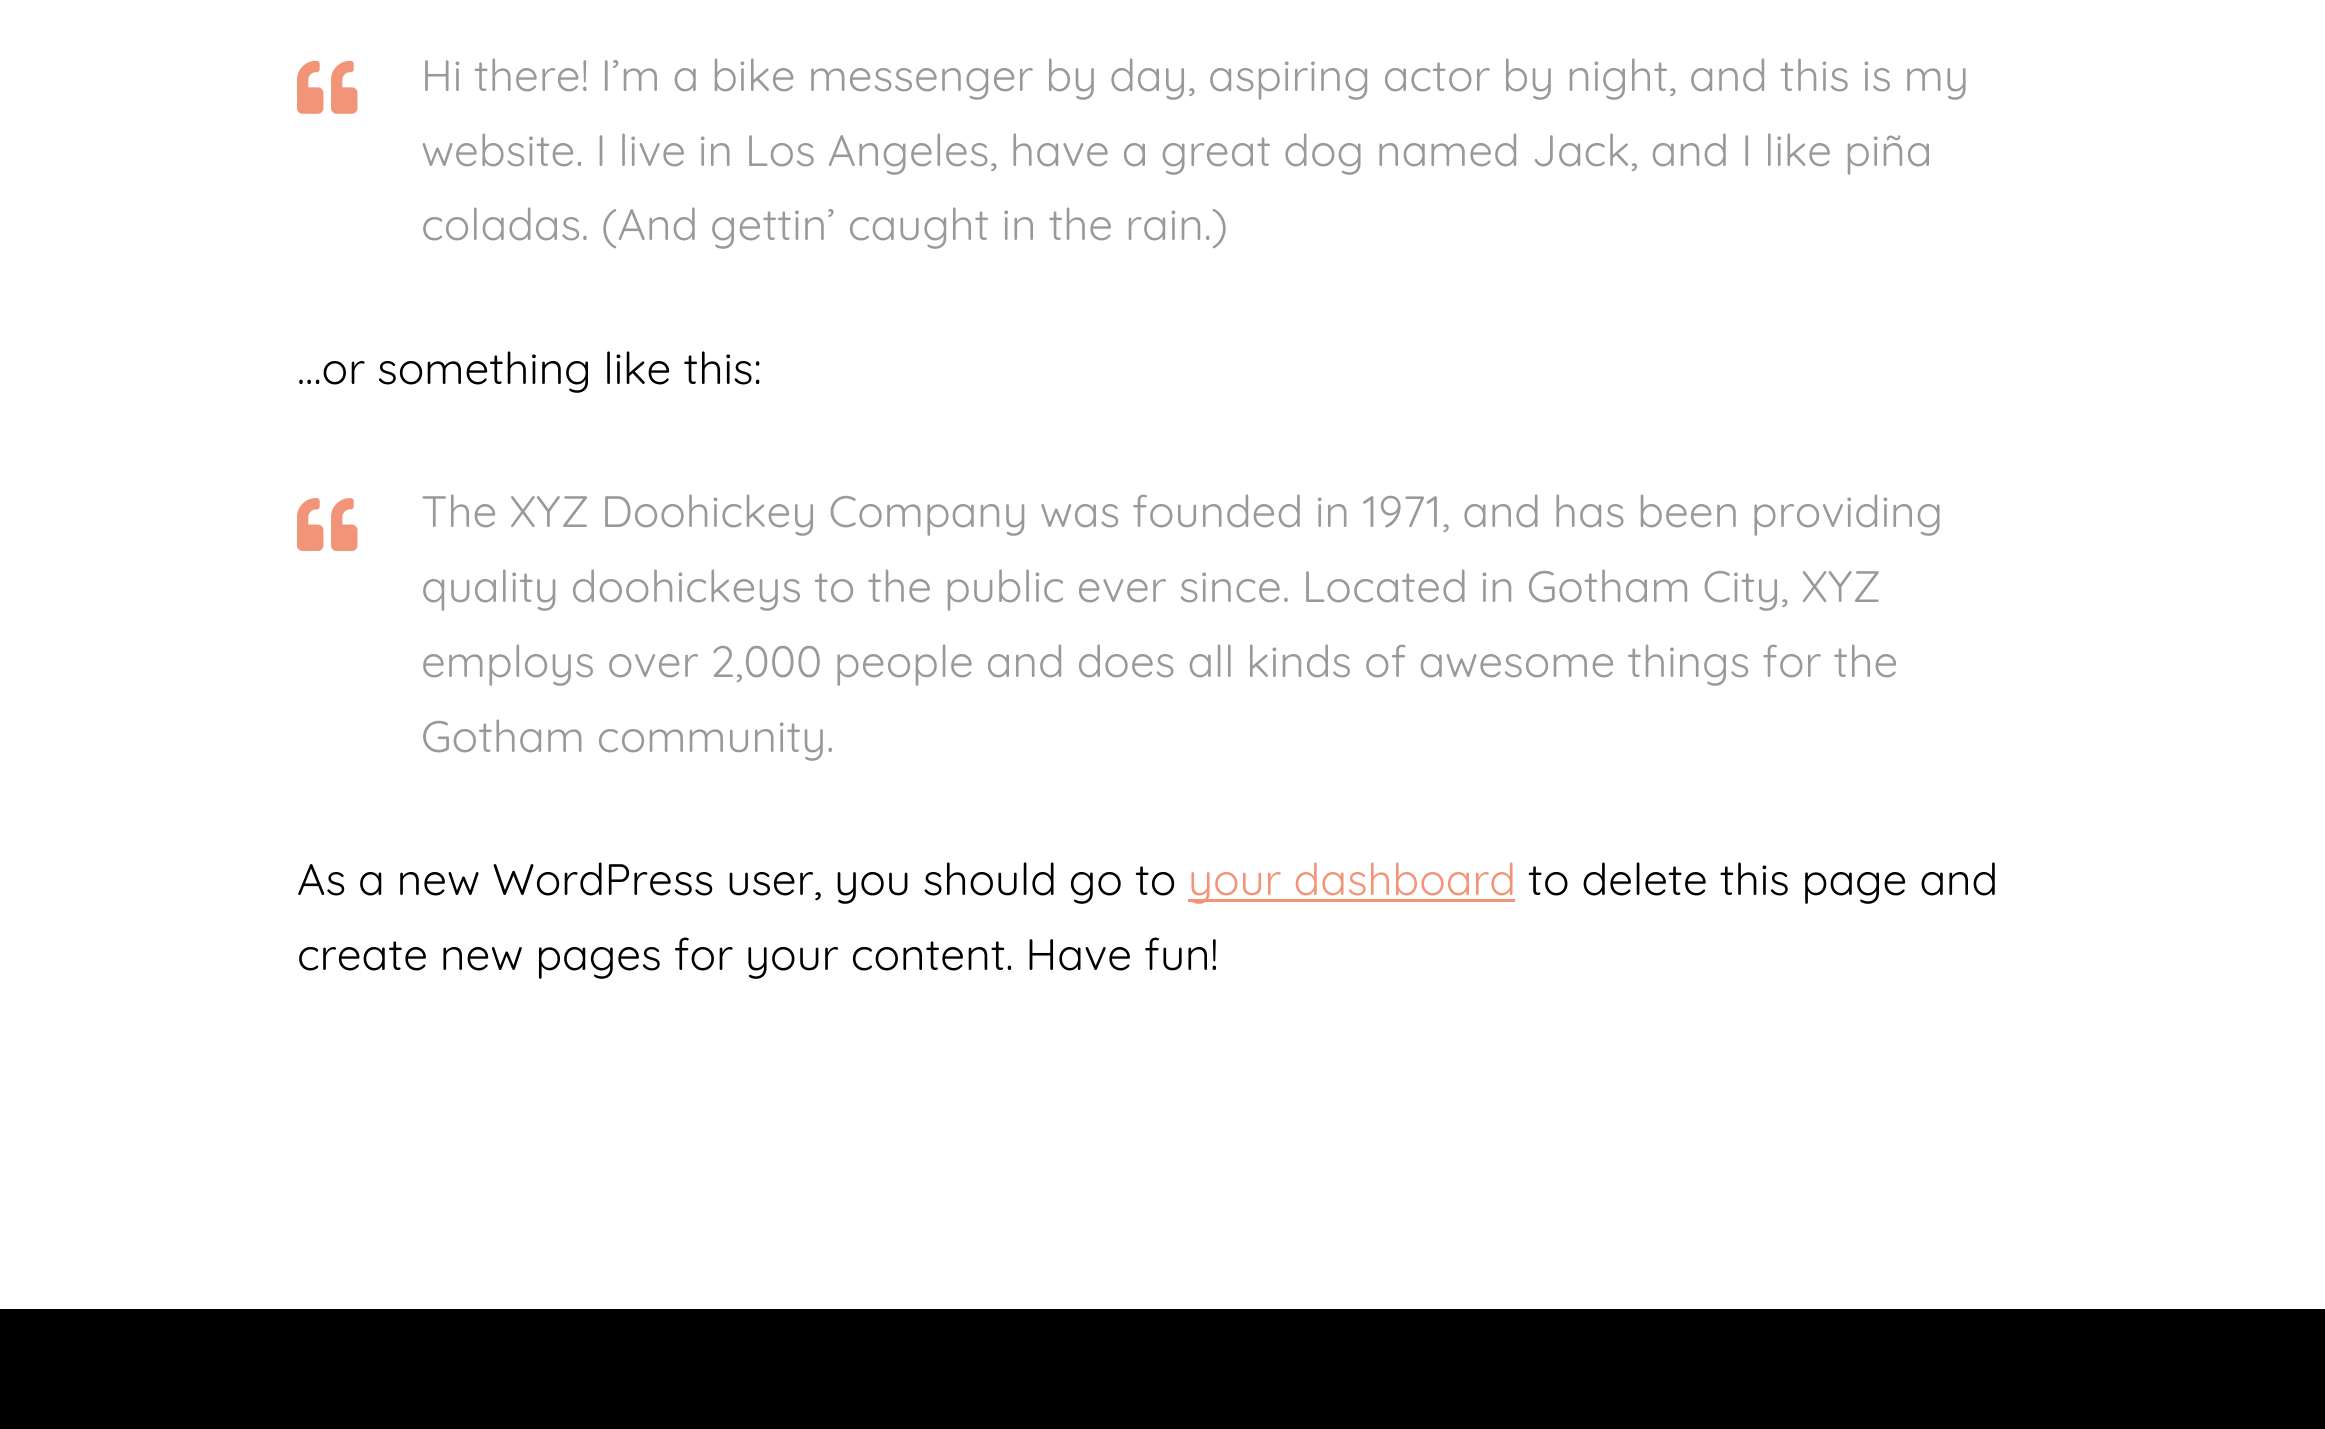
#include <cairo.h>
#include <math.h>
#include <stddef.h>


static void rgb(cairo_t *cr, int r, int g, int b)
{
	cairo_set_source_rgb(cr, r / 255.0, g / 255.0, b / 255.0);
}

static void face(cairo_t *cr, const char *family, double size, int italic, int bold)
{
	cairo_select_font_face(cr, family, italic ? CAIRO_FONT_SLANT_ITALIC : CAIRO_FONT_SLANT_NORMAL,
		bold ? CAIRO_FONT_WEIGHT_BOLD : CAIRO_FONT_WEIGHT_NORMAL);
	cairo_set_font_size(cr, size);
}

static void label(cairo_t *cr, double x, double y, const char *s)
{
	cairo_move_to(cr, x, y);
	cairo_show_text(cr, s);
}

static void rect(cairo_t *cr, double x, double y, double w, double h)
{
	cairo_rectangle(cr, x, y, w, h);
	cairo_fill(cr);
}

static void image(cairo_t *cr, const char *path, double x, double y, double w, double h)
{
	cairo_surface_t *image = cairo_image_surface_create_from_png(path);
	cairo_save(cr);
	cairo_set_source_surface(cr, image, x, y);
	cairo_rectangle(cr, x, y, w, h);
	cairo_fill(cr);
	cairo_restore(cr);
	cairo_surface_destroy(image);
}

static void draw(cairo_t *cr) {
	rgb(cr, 255, 255, 255);
	cairo_paint(cr);
	image(cr, "image0.png", 297, 60, 61, 54);
	face(cr, "Quicksand", 44, 0, 0);
	rgb(cr, 153, 153, 153);
	label(cr, 421, 91, "Hi there! I’m a bike messenger by day, aspiring actor by night, and this is my");
	label(cr, 421, 166, "website. I live in Los Angeles, have a great dog named Jack, and I like piña");
	label(cr, 421, 240, "coladas. (And gettin’ caught in the rain.)");
	rgb(cr, 0, 0, 0);
	label(cr, 297, 384, "…or something like this:");
	image(cr, "image1.png", 297, 498, 61, 53);
	rgb(cr, 153, 153, 153);
	label(cr, 421, 527, "The XYZ Doohickey Company was founded in 1971, and has been providing");
	label(cr, 421, 602, "quality doohickeys to the public ever since. Located in Gotham City, XYZ");
	label(cr, 421, 677, "employs over 2,000 people and does all kinds of awesome things for the");
	label(cr, 421, 752, "Gotham community.");
	rgb(cr, 0, 0, 0);
	label(cr, 297, 895, "As a new WordPress user, you should go to");
	rgb(cr, 242, 148, 120);
	rect(cr, 1188, 899, 327, 3);
	label(cr, 1188, 895, "your dashboard");
	rgb(cr, 0, 0, 0);
	label(cr, 1528, 895, "to delete this page and");
	label(cr, 297, 970, "create new pages for your content. Have fun!");
	rect(cr, 0, 1309, 2325, 120);
}

int main(void) {
	cairo_surface_t *surface = cairo_image_surface_create(CAIRO_FORMAT_RGB24, 2325, 1429);
	cairo_t *cr = cairo_create(surface);
	cairo_font_options_t *options = cairo_font_options_create();
	cairo_font_options_set_hint_metrics(options, CAIRO_HINT_METRICS_OFF);
	cairo_font_options_set_hint_style(options, CAIRO_HINT_STYLE_NONE);
	cairo_set_font_options(cr, options);
	cairo_set_miter_limit(cr, 4);
	draw(cr);
	cairo_surface_write_to_png(surface, "render.png");
	cairo_font_options_destroy(options);
	cairo_destroy(cr);
	cairo_surface_destroy(surface);
	return 0;
}
